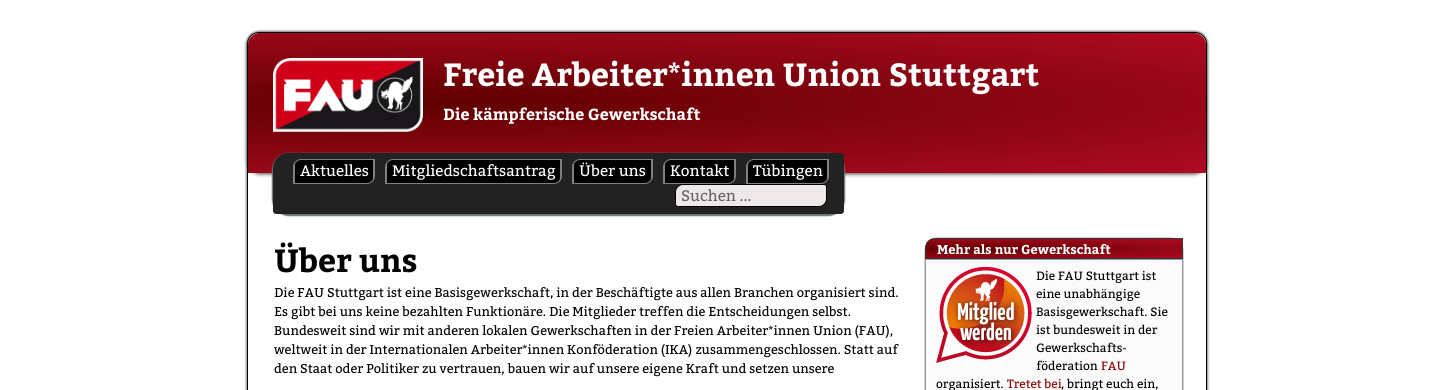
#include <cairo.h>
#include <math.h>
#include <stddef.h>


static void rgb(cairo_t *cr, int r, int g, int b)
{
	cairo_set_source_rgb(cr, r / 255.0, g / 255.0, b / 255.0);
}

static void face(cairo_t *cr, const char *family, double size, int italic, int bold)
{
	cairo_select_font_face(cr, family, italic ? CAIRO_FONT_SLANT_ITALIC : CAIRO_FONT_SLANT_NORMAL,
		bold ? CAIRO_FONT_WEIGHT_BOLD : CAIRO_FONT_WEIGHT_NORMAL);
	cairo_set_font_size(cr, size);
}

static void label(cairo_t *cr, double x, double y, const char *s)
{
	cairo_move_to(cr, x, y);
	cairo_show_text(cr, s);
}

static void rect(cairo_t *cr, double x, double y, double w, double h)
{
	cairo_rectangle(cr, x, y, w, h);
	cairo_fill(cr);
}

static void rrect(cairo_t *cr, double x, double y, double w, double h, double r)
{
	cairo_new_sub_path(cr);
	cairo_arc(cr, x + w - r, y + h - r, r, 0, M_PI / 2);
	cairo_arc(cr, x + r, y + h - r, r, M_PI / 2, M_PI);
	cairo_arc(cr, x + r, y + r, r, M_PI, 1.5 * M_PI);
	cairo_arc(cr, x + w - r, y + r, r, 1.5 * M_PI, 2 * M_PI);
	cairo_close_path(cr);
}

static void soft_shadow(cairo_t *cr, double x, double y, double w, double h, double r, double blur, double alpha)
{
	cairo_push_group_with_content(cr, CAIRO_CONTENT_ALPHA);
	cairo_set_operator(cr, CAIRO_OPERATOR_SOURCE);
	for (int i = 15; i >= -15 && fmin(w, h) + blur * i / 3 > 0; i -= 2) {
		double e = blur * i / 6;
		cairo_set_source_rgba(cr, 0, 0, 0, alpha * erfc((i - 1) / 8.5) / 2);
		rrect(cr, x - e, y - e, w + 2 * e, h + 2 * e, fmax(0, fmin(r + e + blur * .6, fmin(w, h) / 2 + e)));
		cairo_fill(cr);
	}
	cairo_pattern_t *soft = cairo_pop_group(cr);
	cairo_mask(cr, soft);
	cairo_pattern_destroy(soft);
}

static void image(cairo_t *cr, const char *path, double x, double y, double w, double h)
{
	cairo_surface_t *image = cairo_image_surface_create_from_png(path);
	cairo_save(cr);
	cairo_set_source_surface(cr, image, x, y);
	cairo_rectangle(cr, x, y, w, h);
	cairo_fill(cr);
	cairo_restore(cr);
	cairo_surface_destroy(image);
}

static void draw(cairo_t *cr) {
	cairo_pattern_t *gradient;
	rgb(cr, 255, 255, 255);
	cairo_paint(cr);
	rgb(cr, 136, 136, 136);
	soft_shadow(cr, 246, 31, 962, 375, 13, 1, 1);
	rgb(cr, 255, 255, 255);
	cairo_new_path(cr);
	cairo_move_to(cr, 259, 32.5);
	cairo_line_to(cr, 1195, 32.5);
	cairo_curve_to(cr, 1201.5, 32.5, 1206.5, 37.5, 1206.5, 44);
	cairo_line_to(cr, 1206.5, 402.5);
	cairo_line_to(cr, 247.5, 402.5);
	cairo_line_to(cr, 247.5, 44);
	cairo_curve_to(cr, 247.5, 37.5, 252.5, 32.5, 259, 32.5);
	cairo_close_path(cr);
	cairo_fill_preserve(cr);
	rgb(cr, 0, 0, 0);
	cairo_set_line_width(cr, 1);
	cairo_stroke(cr);
	rgb(cr, 0, 0, 0);
	soft_shadow(cr, 248, 34, 958, 140, 12, 2, 0.75);
	gradient = cairo_pattern_create_radial(0, 0, 0, 0, 0, 1);
	cairo_pattern_set_matrix(gradient, &(cairo_matrix_t){1.0 / 1084, 0, 0, 1.0 / 99, -1.0 * 440 / 1084, -1.0 * 103 / 99});
	cairo_pattern_add_color_stop_rgba(gradient, 0, 0.376, 0, 0, 1);
	cairo_pattern_add_color_stop_rgba(gradient, 1, 0.69, 0.039, 0.137, 1);
	cairo_set_source(cr, gradient);
	cairo_pattern_destroy(gradient);
	cairo_new_path(cr);
	cairo_move_to(cr, 260, 33);
	cairo_line_to(cr, 1194, 33);
	cairo_curve_to(cr, 1200.5, 33, 1206, 38.5, 1206, 45);
	cairo_line_to(cr, 1206, 173);
	cairo_line_to(cr, 248, 173);
	cairo_line_to(cr, 248, 45);
	cairo_curve_to(cr, 248, 38.5, 253.5, 33, 260, 33);
	cairo_close_path(cr);
	cairo_fill(cr);
	image(cr, "image0.png", 273, 58, 150, 74);
	face(cr, "Bitter", 32, 0, 1);
	rgb(cr, 255, 255, 255);
	label(cr, 443, 86, "Freie Arbeiter*innen Union Stuttgart");
	face(cr, "Bitter", 16, 0, 1);
	label(cr, 443, 120, "Die kämpferische Gewerkschaft");
	rgb(cr, 101, 111, 112);
	soft_shadow(cr, 272, 153, 573, 63, 17, 0.5, 1);
	rgb(cr, 34, 34, 34);
	cairo_new_path(cr);
	cairo_move_to(cr, 289, 153);
	cairo_line_to(cr, 841, 153);
	cairo_curve_to(cr, 842.5, 153, 844, 154.5, 844, 156);
	cairo_line_to(cr, 844, 211);
	cairo_curve_to(cr, 844, 212.5, 842.5, 214, 841, 214);
	cairo_line_to(cr, 276, 214);
	cairo_curve_to(cr, 274.5, 214, 273, 212.5, 273, 211);
	cairo_line_to(cr, 273, 169);
	cairo_curve_to(cr, 273, 160, 280, 153, 289, 153);
	cairo_close_path(cr);
	cairo_fill(cr);
	rgb(cr, 0, 0, 0);
	cairo_new_path(cr);
	cairo_move_to(cr, 301, 160);
	cairo_line_to(cr, 373, 160);
	cairo_line_to(cr, 373, 176);
	cairo_curve_to(cr, 373, 180, 370, 183, 367, 183);
	cairo_line_to(cr, 295, 183);
	cairo_line_to(cr, 295, 167);
	cairo_curve_to(cr, 295, 163, 298, 160, 301, 160);
	cairo_close_path(cr);
	cairo_fill(cr);
	cairo_new_path(cr);
	cairo_move_to(cr, 301, 159.5);
	cairo_line_to(cr, 374.5, 159.5);
	cairo_line_to(cr, 374.5, 176);
	cairo_curve_to(cr, 374.5, 180, 371, 183.5, 367, 183.5);
	cairo_line_to(cr, 293.5, 183.5);
	cairo_line_to(cr, 293.5, 167);
	cairo_curve_to(cr, 293.5, 163, 297, 159.5, 301, 159.5);
	cairo_close_path(cr);
	rgb(cr, 128, 128, 128);
	cairo_stroke(cr);
	rect(cr, 373, 159, 1, 21);
	rect(cr, 294, 163, 1, 21);
	face(cr, "Bitter", 15.25, 0, 0);
	rgb(cr, 255, 255, 255);
	label(cr, 300, 176, "Aktuelles");
	rgb(cr, 0, 0, 0);
	cairo_new_path(cr);
	cairo_move_to(cr, 393, 160);
	cairo_line_to(cr, 560, 160);
	cairo_line_to(cr, 560, 176);
	cairo_curve_to(cr, 560, 180, 557, 183, 554, 183);
	cairo_line_to(cr, 387, 183);
	cairo_line_to(cr, 387, 167);
	cairo_curve_to(cr, 387, 163, 390, 160, 393, 160);
	cairo_close_path(cr);
	cairo_fill(cr);
	cairo_new_path(cr);
	cairo_move_to(cr, 393, 159.5);
	cairo_line_to(cr, 561.5, 159.5);
	cairo_line_to(cr, 561.5, 176);
	cairo_curve_to(cr, 561.5, 180, 558, 183.5, 554, 183.5);
	cairo_line_to(cr, 385.5, 183.5);
	cairo_line_to(cr, 385.5, 167);
	cairo_curve_to(cr, 385.5, 163, 389, 159.5, 393, 159.5);
	cairo_close_path(cr);
	rgb(cr, 128, 128, 128);
	cairo_stroke(cr);
	rect(cr, 560, 159, 1, 21);
	rect(cr, 386, 163, 1, 21);
	rgb(cr, 255, 255, 255);
	label(cr, 392, 176, "Mitgliedschaftsantrag");
	rgb(cr, 0, 0, 0);
	cairo_new_path(cr);
	cairo_move_to(cr, 580, 160);
	cairo_line_to(cr, 651, 160);
	cairo_line_to(cr, 651, 176);
	cairo_curve_to(cr, 651, 180, 648, 183, 645, 183);
	cairo_line_to(cr, 574, 183);
	cairo_line_to(cr, 574, 167);
	cairo_curve_to(cr, 574, 163, 577, 160, 580, 160);
	cairo_close_path(cr);
	cairo_fill(cr);
	cairo_new_path(cr);
	cairo_move_to(cr, 580, 159.5);
	cairo_line_to(cr, 652.5, 159.5);
	cairo_line_to(cr, 652.5, 176);
	cairo_curve_to(cr, 652.5, 180, 649, 183.5, 645, 183.5);
	cairo_line_to(cr, 572.5, 183.5);
	cairo_line_to(cr, 572.5, 167);
	cairo_curve_to(cr, 572.5, 163, 576, 159.5, 580, 159.5);
	cairo_close_path(cr);
	rgb(cr, 128, 128, 128);
	cairo_stroke(cr);
	rect(cr, 651, 159, 1, 21);
	rect(cr, 573, 163, 1, 21);
	rgb(cr, 255, 255, 255);
	label(cr, 579, 176, "Über uns");
	rgb(cr, 0, 0, 0);
	cairo_new_path(cr);
	cairo_move_to(cr, 671, 160);
	cairo_line_to(cr, 734, 160);
	cairo_line_to(cr, 734, 176);
	cairo_curve_to(cr, 734, 180, 731, 183, 728, 183);
	cairo_line_to(cr, 665, 183);
	cairo_line_to(cr, 665, 167);
	cairo_curve_to(cr, 665, 163, 668, 160, 671, 160);
	cairo_close_path(cr);
	cairo_fill(cr);
	cairo_new_path(cr);
	cairo_move_to(cr, 671, 159.5);
	cairo_line_to(cr, 735.5, 159.5);
	cairo_line_to(cr, 735.5, 176);
	cairo_curve_to(cr, 735.5, 180, 732, 183.5, 728, 183.5);
	cairo_line_to(cr, 663.5, 183.5);
	cairo_line_to(cr, 663.5, 167);
	cairo_curve_to(cr, 663.5, 163, 667, 159.5, 671, 159.5);
	cairo_close_path(cr);
	rgb(cr, 128, 128, 128);
	cairo_stroke(cr);
	rect(cr, 734, 159, 1, 21);
	rect(cr, 664, 163, 1, 21);
	rgb(cr, 255, 255, 255);
	label(cr, 670, 176, "Kontakt");
	rgb(cr, 0, 0, 0);
	cairo_new_path(cr);
	cairo_move_to(cr, 754, 160);
	cairo_line_to(cr, 827, 160);
	cairo_line_to(cr, 827, 176);
	cairo_curve_to(cr, 827, 180, 824, 183, 821, 183);
	cairo_line_to(cr, 748, 183);
	cairo_line_to(cr, 748, 167);
	cairo_curve_to(cr, 748, 163, 751, 160, 754, 160);
	cairo_close_path(cr);
	cairo_fill(cr);
	cairo_new_path(cr);
	cairo_move_to(cr, 754, 159.5);
	cairo_line_to(cr, 828.5, 159.5);
	cairo_line_to(cr, 828.5, 176);
	cairo_curve_to(cr, 828.5, 180, 825, 183.5, 821, 183.5);
	cairo_line_to(cr, 746.5, 183.5);
	cairo_line_to(cr, 746.5, 167);
	cairo_curve_to(cr, 746.5, 163, 750, 159.5, 754, 159.5);
	cairo_close_path(cr);
	rgb(cr, 128, 128, 128);
	cairo_stroke(cr);
	rect(cr, 827, 159, 1, 21);
	rect(cr, 747, 163, 1, 21);
	rgb(cr, 255, 255, 255);
	label(cr, 753, 176, "Tübingen");
	rgb(cr, 239, 232, 232);
	cairo_new_path(cr);
	cairo_move_to(cr, 683, 184.5);
	cairo_line_to(cr, 824, 184.5);
	cairo_curve_to(cr, 825.5, 184.5, 826.5, 185.5, 826.5, 187);
	cairo_line_to(cr, 826.5, 199);
	cairo_curve_to(cr, 826.5, 203, 823, 206.5, 819, 206.5);
	cairo_line_to(cr, 678, 206.5);
	cairo_curve_to(cr, 676.5, 206.5, 675.5, 205.5, 675.5, 204);
	cairo_line_to(cr, 675.5, 192);
	cairo_curve_to(cr, 675.5, 188, 679, 184.5, 683, 184.5);
	cairo_close_path(cr);
	cairo_fill_preserve(cr);
	rgb(cr, 0, 0, 0);
	cairo_stroke(cr);
	rgb(cr, 102, 102, 102);
	label(cr, 681, 201, "Suchen ...");
	face(cr, "Bitter", 32, 0, 1);
	rgb(cr, 0, 0, 0);
	label(cr, 274, 272, "Über uns");
	face(cr, "Bitter", 12.8, 0, 0);
	label(cr, 274, 297, "Die FAU Stuttgart ist eine Basisgewerkschaft, in der Beschäftigte aus allen Branchen organisiert sind.");
	label(cr, 274, 316, "Es gibt bei uns keine bezahlten Funktionäre. Die Mitglieder treffen die Entscheidungen selbst.");
	label(cr, 274, 335, "Bundesweit sind wir mit anderen lokalen Gewerkschaften in der Freien Arbeiter*innen Union (FAU),");
	label(cr, 274, 354, "weltweit in der Internationalen Arbeiter*innen Konföderation (IKA) zusammengeschlossen. Statt auf");
	label(cr, 274, 373, "den Staat oder Politiker zu vertrauen, bauen wir auf unsere eigene Kraft und setzen unsere");
	rgb(cr, 0, 0, 0);
	soft_shadow(cr, 925, 238, 258, 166, 12, 0.5, 0.75);
	cairo_save(cr);
	cairo_new_path(cr);
	cairo_move_to(cr, 935, 238);
	cairo_line_to(cr, 1183, 238);
	cairo_line_to(cr, 1183, 259);
	cairo_line_to(cr, 925, 259);
	cairo_line_to(cr, 925, 248);
	cairo_curve_to(cr, 925, 242.5, 929.5, 238, 935, 238);
	cairo_close_path(cr);
	cairo_clip(cr);
	gradient = cairo_pattern_create_radial(0, 0, 0, 0, 0, 1);
	cairo_pattern_set_matrix(gradient, &(cairo_matrix_t){1.0 / 290, 0, 0, 1.0 / 13, -1.0 * 977 / 290, -1.0 * 249 / 13});
	cairo_pattern_add_color_stop_rgba(gradient, 0, 0.376, 0, 0, 1);
	cairo_pattern_add_color_stop_rgba(gradient, 1, 0.69, 0.039, 0.137, 1);
	cairo_set_source(cr, gradient);
	cairo_pattern_destroy(gradient);
	rect(cr, 926, 239, 256, 19);
	cairo_restore(cr);
	cairo_new_path(cr);
	cairo_move_to(cr, 935, 238.5);
	cairo_line_to(cr, 1182.5, 238.5);
	cairo_line_to(cr, 1182.5, 258.5);
	cairo_line_to(cr, 925.5, 258.5);
	cairo_line_to(cr, 925.5, 248);
	cairo_curve_to(cr, 925.5, 243, 930, 238.5, 935, 238.5);
	cairo_close_path(cr);
	rgb(cr, 54, 54, 54);
	cairo_stroke(cr);
	face(cr, "Bitter", 12.8, 0, 1);
	rgb(cr, 255, 255, 255);
	label(cr, 937, 254, "Mehr als nur Gewerkschaft");
	rgb(cr, 251, 251, 251);
	cairo_rectangle(cr, 925.5, 259.5, 257, 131);
	cairo_fill_preserve(cr);
	rgb(cr, 153, 153, 153);
	cairo_stroke(cr);
	image(cr, "image1.png", 936, 267, 96, 96);
	face(cr, "Bitter", 12, 0, 0);
	rgb(cr, 0, 0, 0);
	label(cr, 1036, 280, "Die FAU Stuttgart ist");
	label(cr, 1036, 298, "eine unabhängige");
	label(cr, 1036, 316, "Basisgewerkschaft. Sie");
	label(cr, 1036, 334, "ist bundesweit in der");
	label(cr, 1036, 352, "Gewerkschafts-");
	label(cr, 1036, 370, "föderation");
	rgb(cr, 139, 0, 0);
	label(cr, 1101, 370, "FAU");
	rgb(cr, 0, 0, 0);
	label(cr, 936, 388, "organisiert.");
	rgb(cr, 139, 0, 0);
	label(cr, 1007, 388, "Tretet bei");
	rgb(cr, 0, 0, 0);
	label(cr, 1061, 388, ", bringt euch ein,");
}

int main(void) {
	cairo_surface_t *surface = cairo_image_surface_create(CAIRO_FORMAT_RGB24, 1453, 390);
	cairo_t *cr = cairo_create(surface);
	cairo_font_options_t *options = cairo_font_options_create();
	cairo_font_options_set_hint_metrics(options, CAIRO_HINT_METRICS_OFF);
	cairo_font_options_set_hint_style(options, CAIRO_HINT_STYLE_NONE);
	cairo_set_font_options(cr, options);
	cairo_set_miter_limit(cr, 4);
	draw(cr);
	cairo_surface_write_to_png(surface, "render.png");
	cairo_font_options_destroy(options);
	cairo_destroy(cr);
	cairo_surface_destroy(surface);
	return 0;
}
